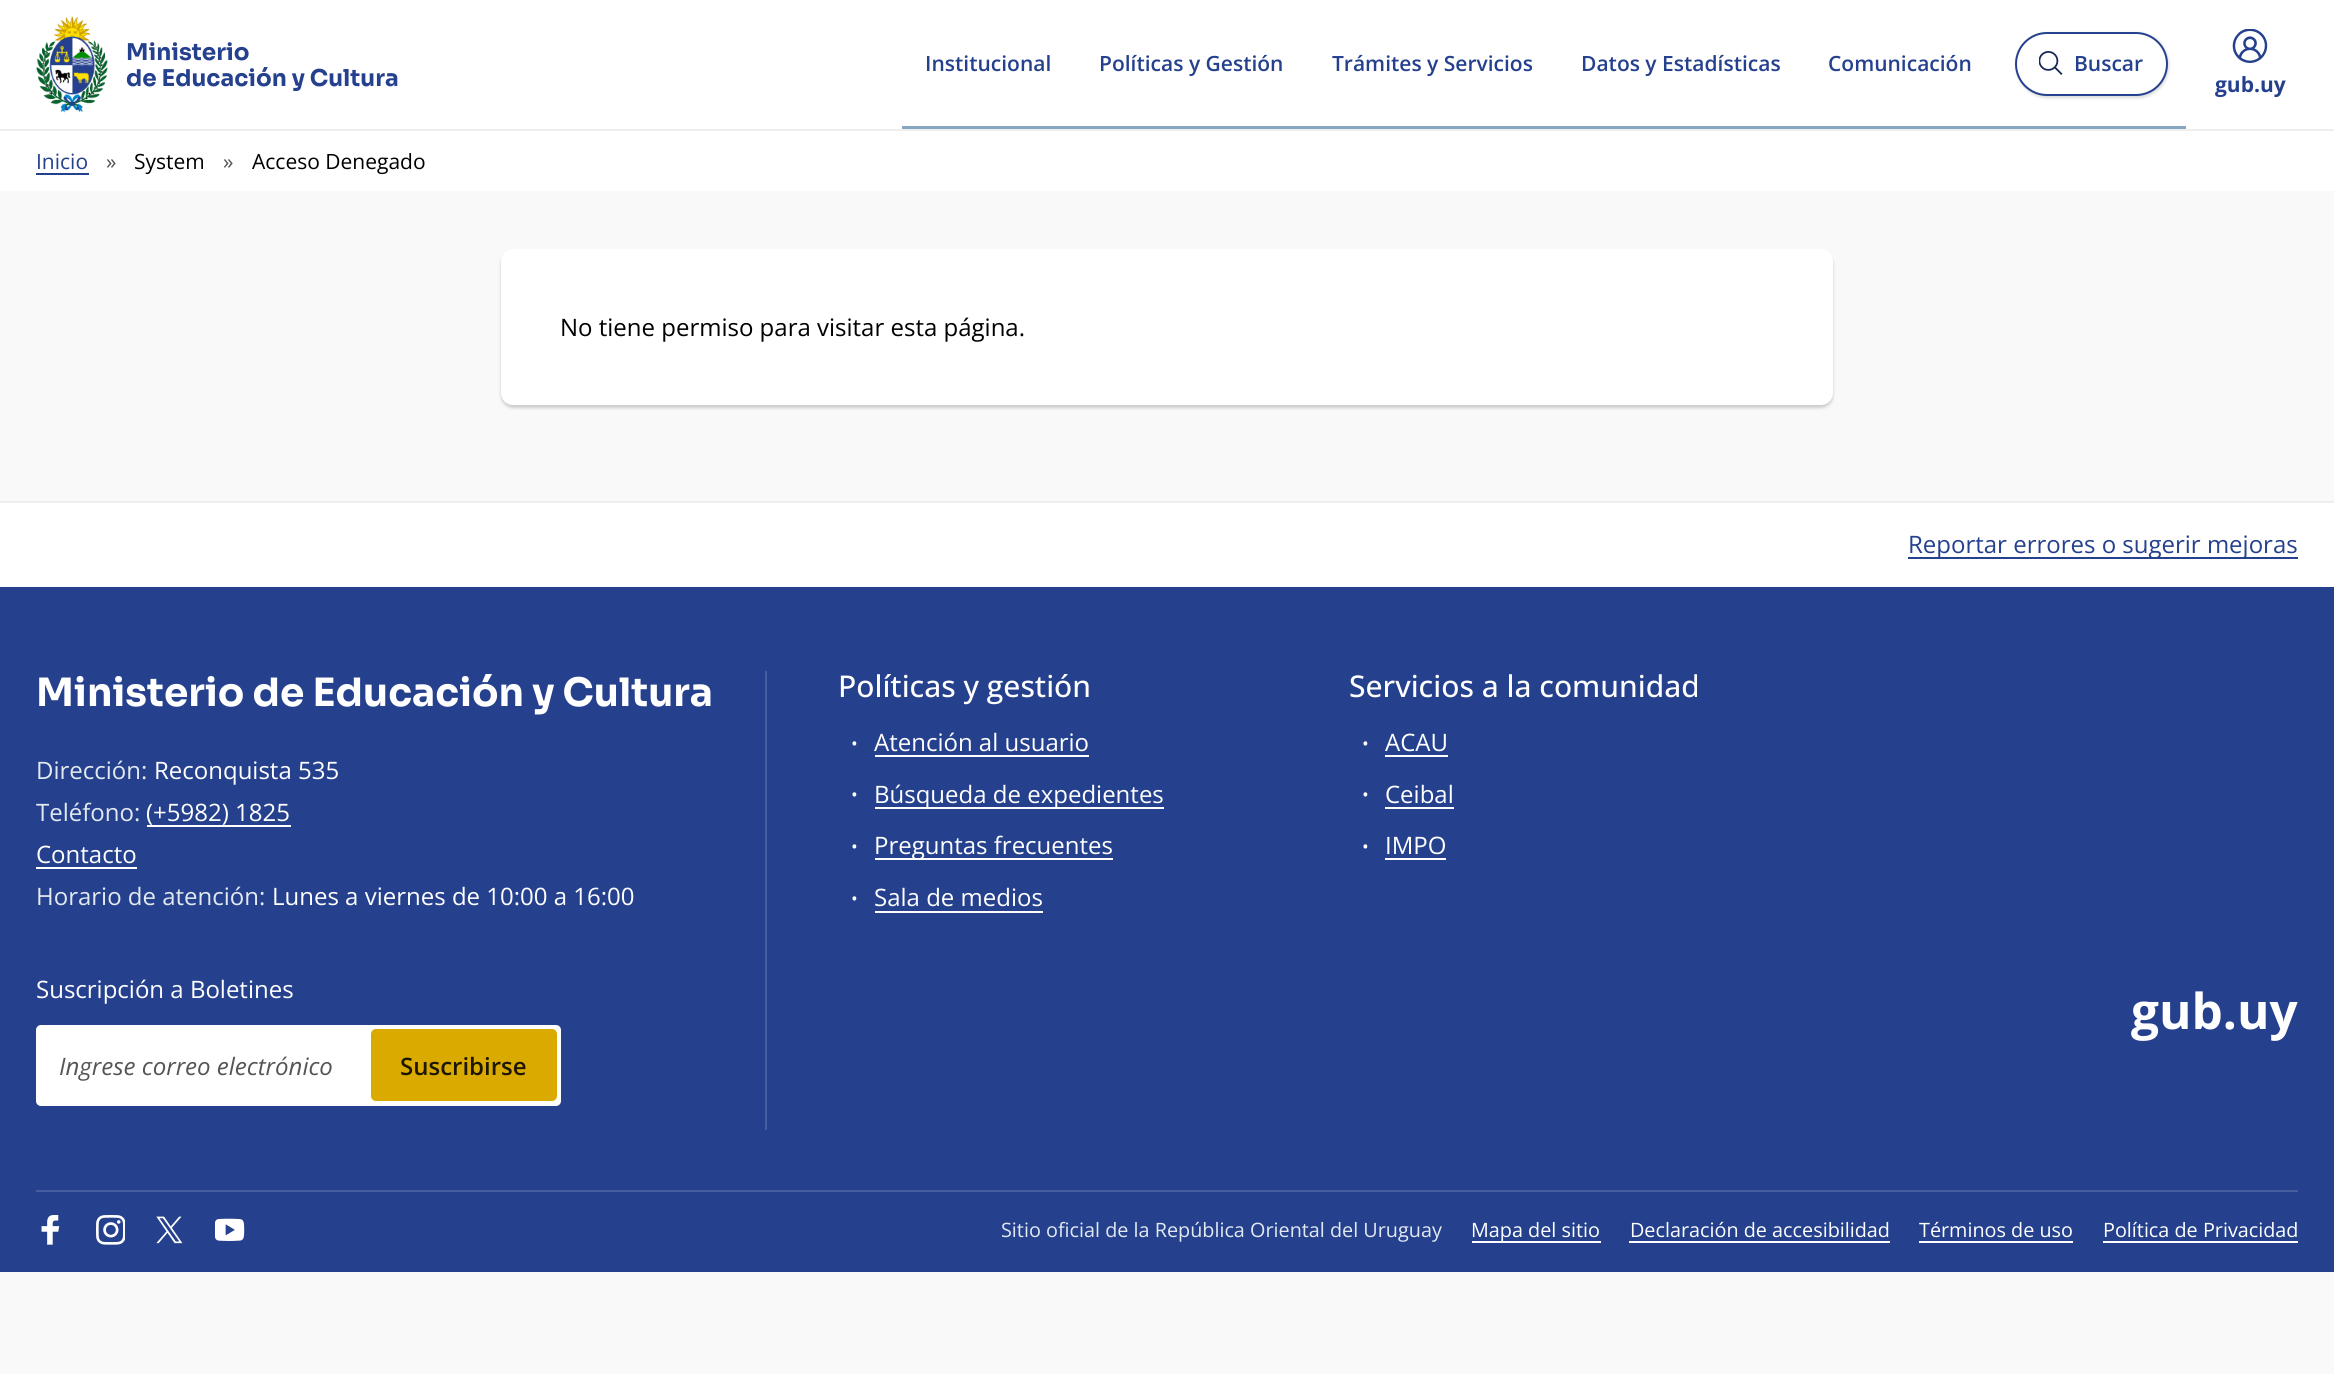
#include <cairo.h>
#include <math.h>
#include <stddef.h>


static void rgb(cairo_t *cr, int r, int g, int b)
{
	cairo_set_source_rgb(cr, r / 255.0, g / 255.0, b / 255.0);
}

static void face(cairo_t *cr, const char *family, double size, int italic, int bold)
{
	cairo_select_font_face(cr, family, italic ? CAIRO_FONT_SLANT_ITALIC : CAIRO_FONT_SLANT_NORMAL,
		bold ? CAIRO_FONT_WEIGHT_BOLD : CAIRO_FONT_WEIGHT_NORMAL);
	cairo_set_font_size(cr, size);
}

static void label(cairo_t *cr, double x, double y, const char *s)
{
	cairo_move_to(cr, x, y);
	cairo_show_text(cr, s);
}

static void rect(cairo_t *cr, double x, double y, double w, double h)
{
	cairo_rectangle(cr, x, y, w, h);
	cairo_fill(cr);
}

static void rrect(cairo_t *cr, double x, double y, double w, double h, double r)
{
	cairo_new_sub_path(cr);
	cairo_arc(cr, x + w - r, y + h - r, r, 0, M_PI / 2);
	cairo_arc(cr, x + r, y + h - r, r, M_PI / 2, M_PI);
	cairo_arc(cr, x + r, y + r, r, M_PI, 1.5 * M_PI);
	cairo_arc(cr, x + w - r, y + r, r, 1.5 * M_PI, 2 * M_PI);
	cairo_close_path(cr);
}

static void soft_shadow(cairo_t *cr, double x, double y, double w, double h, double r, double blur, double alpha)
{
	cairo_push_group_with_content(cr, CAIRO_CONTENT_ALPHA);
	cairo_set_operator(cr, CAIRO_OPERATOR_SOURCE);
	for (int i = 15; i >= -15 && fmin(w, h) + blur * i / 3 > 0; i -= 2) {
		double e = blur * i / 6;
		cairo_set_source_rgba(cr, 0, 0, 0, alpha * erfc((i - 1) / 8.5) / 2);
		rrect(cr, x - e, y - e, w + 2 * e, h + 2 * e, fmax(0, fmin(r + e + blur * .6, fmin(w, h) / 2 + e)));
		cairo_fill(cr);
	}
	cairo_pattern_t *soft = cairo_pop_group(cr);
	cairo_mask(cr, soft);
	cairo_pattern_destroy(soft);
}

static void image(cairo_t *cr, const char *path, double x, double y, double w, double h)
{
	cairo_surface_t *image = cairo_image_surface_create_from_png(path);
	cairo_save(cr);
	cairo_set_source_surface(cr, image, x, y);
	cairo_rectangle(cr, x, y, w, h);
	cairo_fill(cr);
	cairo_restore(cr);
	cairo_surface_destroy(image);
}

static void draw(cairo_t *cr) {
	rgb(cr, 249, 249, 249);
	cairo_paint(cr);
	rgb(cr, 255, 255, 255);
	rect(cr, 0, 0, 2334, 129);
	image(cr, "image0.png", 36, 16, 72, 97);
	face(cr, "Sora", 23.1, 0, 1);
	rgb(cr, 37, 65, 142);
	label(cr, 126, 60, "Ministerio");
	label(cr, 126, 86, "de Educación y Cultura");
	rgb(cr, 135, 165, 192);
	rect(cr, 902, 126, 1095, 3);
	face(cr, "Open Sans SemiBold", 21, 0, 0);
	rgb(cr, 37, 65, 142);
	label(cr, 925, 71, "Institucional");
	label(cr, 1099, 71, "Políticas y Gestión");
	label(cr, 1332, 71, "Trámites y Servicios");
	label(cr, 1581, 71, "Datos y Estadísticas");
	label(cr, 1828, 71, "Comunicación");
	rgb(cr, 135, 165, 192);
	rect(cr, 1997, 126, 189, 3);
	rgb(cr, 0, 0, 0);
	soft_shadow(cr, 2016, 33, 153, 65, 32.5, 1.5, 0.15);
	rgb(cr, 255, 255, 255);
	rrect(cr, 2016, 33, 151, 62, 31);
	cairo_fill_preserve(cr);
	rgb(cr, 37, 65, 142);
	cairo_stroke(cr);
	image(cr, "image1.png", 2039, 51, 24, 24);
	label(cr, 2074, 71, "Buscar");
	image(cr, "image2.png", 2232, 29, 36, 34);
	face(cr, "Open Sans", 21, 0, 1);
	label(cr, 2215, 92, "gub.uy");
	rgb(cr, 255, 255, 255);
	rect(cr, 0, 131, 2334, 60);
	rgb(cr, 238, 238, 238);
	rect(cr, 0, 129, 2334, 2);
	face(cr, "Open Sans", 21, 0, 0);
	rgb(cr, 37, 65, 142);
	label(cr, 36, 169, "Inicio");
	rect(cr, 36, 173, 53, 2);
	rgb(cr, 85, 85, 85);
	label(cr, 106, 169, "»");
	rgb(cr, 0, 0, 0);
	label(cr, 134, 169, "System");
	rgb(cr, 85, 85, 85);
	label(cr, 223, 169, "»");
	rgb(cr, 0, 0, 0);
	label(cr, 252, 169, "Acceso Denegado");
	rgb(cr, 0, 0, 0);
	soft_shadow(cr, 501, 252, 1332, 156, 12, 1.5, 0.18);
	rgb(cr, 255, 255, 255);
	rrect(cr, 501, 249, 1332, 156, 12);
	cairo_fill(cr);
	face(cr, "Open Sans", 24, 0, 0);
	rgb(cr, 0, 0, 0);
	label(cr, 560, 336, "No tiene permiso para visitar esta página.");
	rgb(cr, 255, 255, 255);
	rect(cr, 0, 503, 2334, 84);
	rgb(cr, 238, 238, 238);
	rect(cr, 0, 501, 2334, 2);
	rgb(cr, 37, 65, 142);
	rect(cr, 1908, 557, 390, 2);
	label(cr, 1908, 553, "Reportar errores o sugerir mejoras");
	rect(cr, 0, 587, 2334, 685);
	rgb(cr, 70, 94, 159);
	rect(cr, 765, 671, 2, 459);
	face(cr, "Sora", 39, 0, 1);
	rgb(cr, 255, 255, 255);
	label(cr, 36, 706, "Ministerio de Educación y Cultura");
	face(cr, "Open Sans", 24, 0, 0);
	rgb(cr, 226, 233, 241);
	label(cr, 36, 779, "Dirección:");
	rgb(cr, 255, 255, 255);
	label(cr, 154, 779, "Reconquista 535");
	rgb(cr, 226, 233, 241);
	label(cr, 36, 821, "Teléfono:");
	rgb(cr, 255, 255, 255);
	label(cr, 146, 821, "(+5982) 1825");
	rect(cr, 147, 825, 144, 2);
	label(cr, 36, 863, "Contacto");
	rect(cr, 36, 867, 101, 2);
	rgb(cr, 226, 233, 241);
	label(cr, 36, 905, "Horario de atención:");
	rgb(cr, 255, 255, 255);
	label(cr, 272, 905, "Lunes a viernes de 10:00 a 16:00");
	label(cr, 36, 998, "Suscripción a Boletines");
	rrect(cr, 36, 1025, 525, 81, 5);
	cairo_fill(cr);
	face(cr, "Open Sans", 24, 1, 0);
	rgb(cr, 85, 85, 85);
	label(cr, 59, 1075, "Ingrese correo electrónico");
	rgb(cr, 218, 170, 0);
	rrect(cr, 371, 1029, 186, 72, 5);
	cairo_fill(cr);
	face(cr, "Open Sans SemiBold", 24, 0, 0);
	rgb(cr, 30, 23, 0);
	label(cr, 400, 1075, "Suscribirse");
	face(cr, "Open Sans Medium", 30, 0, 0);
	rgb(cr, 255, 255, 255);
	label(cr, 838, 697, "Políticas y gestión");
	face(cr, "Open Sans", 18, 0, 0);
	label(cr, 851, 750, "•");
	face(cr, "Open Sans", 24, 0, 0);
	label(cr, 874, 751, "Atención al usuario");
	rect(cr, 875, 755, 214, 2);
	face(cr, "Open Sans", 18, 0, 0);
	label(cr, 851, 801, "•");
	rect(cr, 875, 807, 289, 2);
	face(cr, "Open Sans", 24, 0, 0);
	label(cr, 874, 803, "Búsqueda de expedientes");
	face(cr, "Open Sans", 18, 0, 0);
	label(cr, 851, 853, "•");
	rect(cr, 875, 858, 238, 2);
	face(cr, "Open Sans", 24, 0, 0);
	label(cr, 874, 854, "Preguntas frecuentes");
	face(cr, "Open Sans", 18, 0, 0);
	label(cr, 851, 905, "•");
	face(cr, "Open Sans", 24, 0, 0);
	label(cr, 874, 906, "Sala de medios");
	rect(cr, 875, 911, 168, 2);
	face(cr, "Open Sans Medium", 30, 0, 0);
	label(cr, 1349, 697, "Servicios a la comunidad");
	face(cr, "Open Sans", 18, 0, 0);
	label(cr, 1362, 750, "•");
	face(cr, "Open Sans", 24, 0, 0);
	label(cr, 1385, 751, "ACAU");
	rect(cr, 1385, 755, 63, 2);
	face(cr, "Open Sans", 18, 0, 0);
	label(cr, 1362, 801, "•");
	face(cr, "Open Sans", 24, 0, 0);
	label(cr, 1385, 803, "Ceibal");
	rect(cr, 1385, 807, 69, 2);
	face(cr, "Open Sans", 18, 0, 0);
	label(cr, 1362, 853, "•");
	face(cr, "Open Sans", 24, 0, 0);
	label(cr, 1385, 854, "IMPO");
	rect(cr, 1385, 858, 61, 2);
	face(cr, "Open Sans", 49.5, 0, 1);
	label(cr, 2131, 1029, "gub.uy");
	rgb(cr, 70, 94, 159);
	rect(cr, 36, 1190, 2262, 2);
	image(cr, "image3.png", 41, 1215, 19, 30);
	image(cr, "image4.png", 96, 1215, 29, 30);
	image(cr, "image5.png", 156, 1216, 27, 28);
	image(cr, "image6.png", 215, 1218, 30, 23);
	face(cr, "Open Sans", 19.8, 0, 0);
	rgb(cr, 226, 233, 241);
	label(cr, 1001, 1237, "Sitio oficial de la República Oriental del Uruguay");
	rgb(cr, 255, 255, 255);
	rect(cr, 1472, 1241, 129, 2);
	label(cr, 1471, 1237, "Mapa del sitio");
	label(cr, 1630, 1237, "Declaración de accesibilidad");
	rect(cr, 1629, 1241, 261, 2);
	label(cr, 1919, 1237, "Términos de uso");
	rect(cr, 1919, 1241, 154, 2);
	label(cr, 2103, 1237, "Política de Privacidad");
	rect(cr, 2103, 1241, 195, 2);
}

int main(void) {
	cairo_surface_t *surface = cairo_image_surface_create(CAIRO_FORMAT_RGB24, 2334, 1374);
	cairo_t *cr = cairo_create(surface);
	cairo_font_options_t *options = cairo_font_options_create();
	cairo_font_options_set_hint_metrics(options, CAIRO_HINT_METRICS_OFF);
	cairo_font_options_set_hint_style(options, CAIRO_HINT_STYLE_NONE);
	cairo_set_font_options(cr, options);
	cairo_set_miter_limit(cr, 4);
	draw(cr);
	cairo_surface_write_to_png(surface, "render.png");
	cairo_font_options_destroy(options);
	cairo_destroy(cr);
	cairo_surface_destroy(surface);
	return 0;
}
